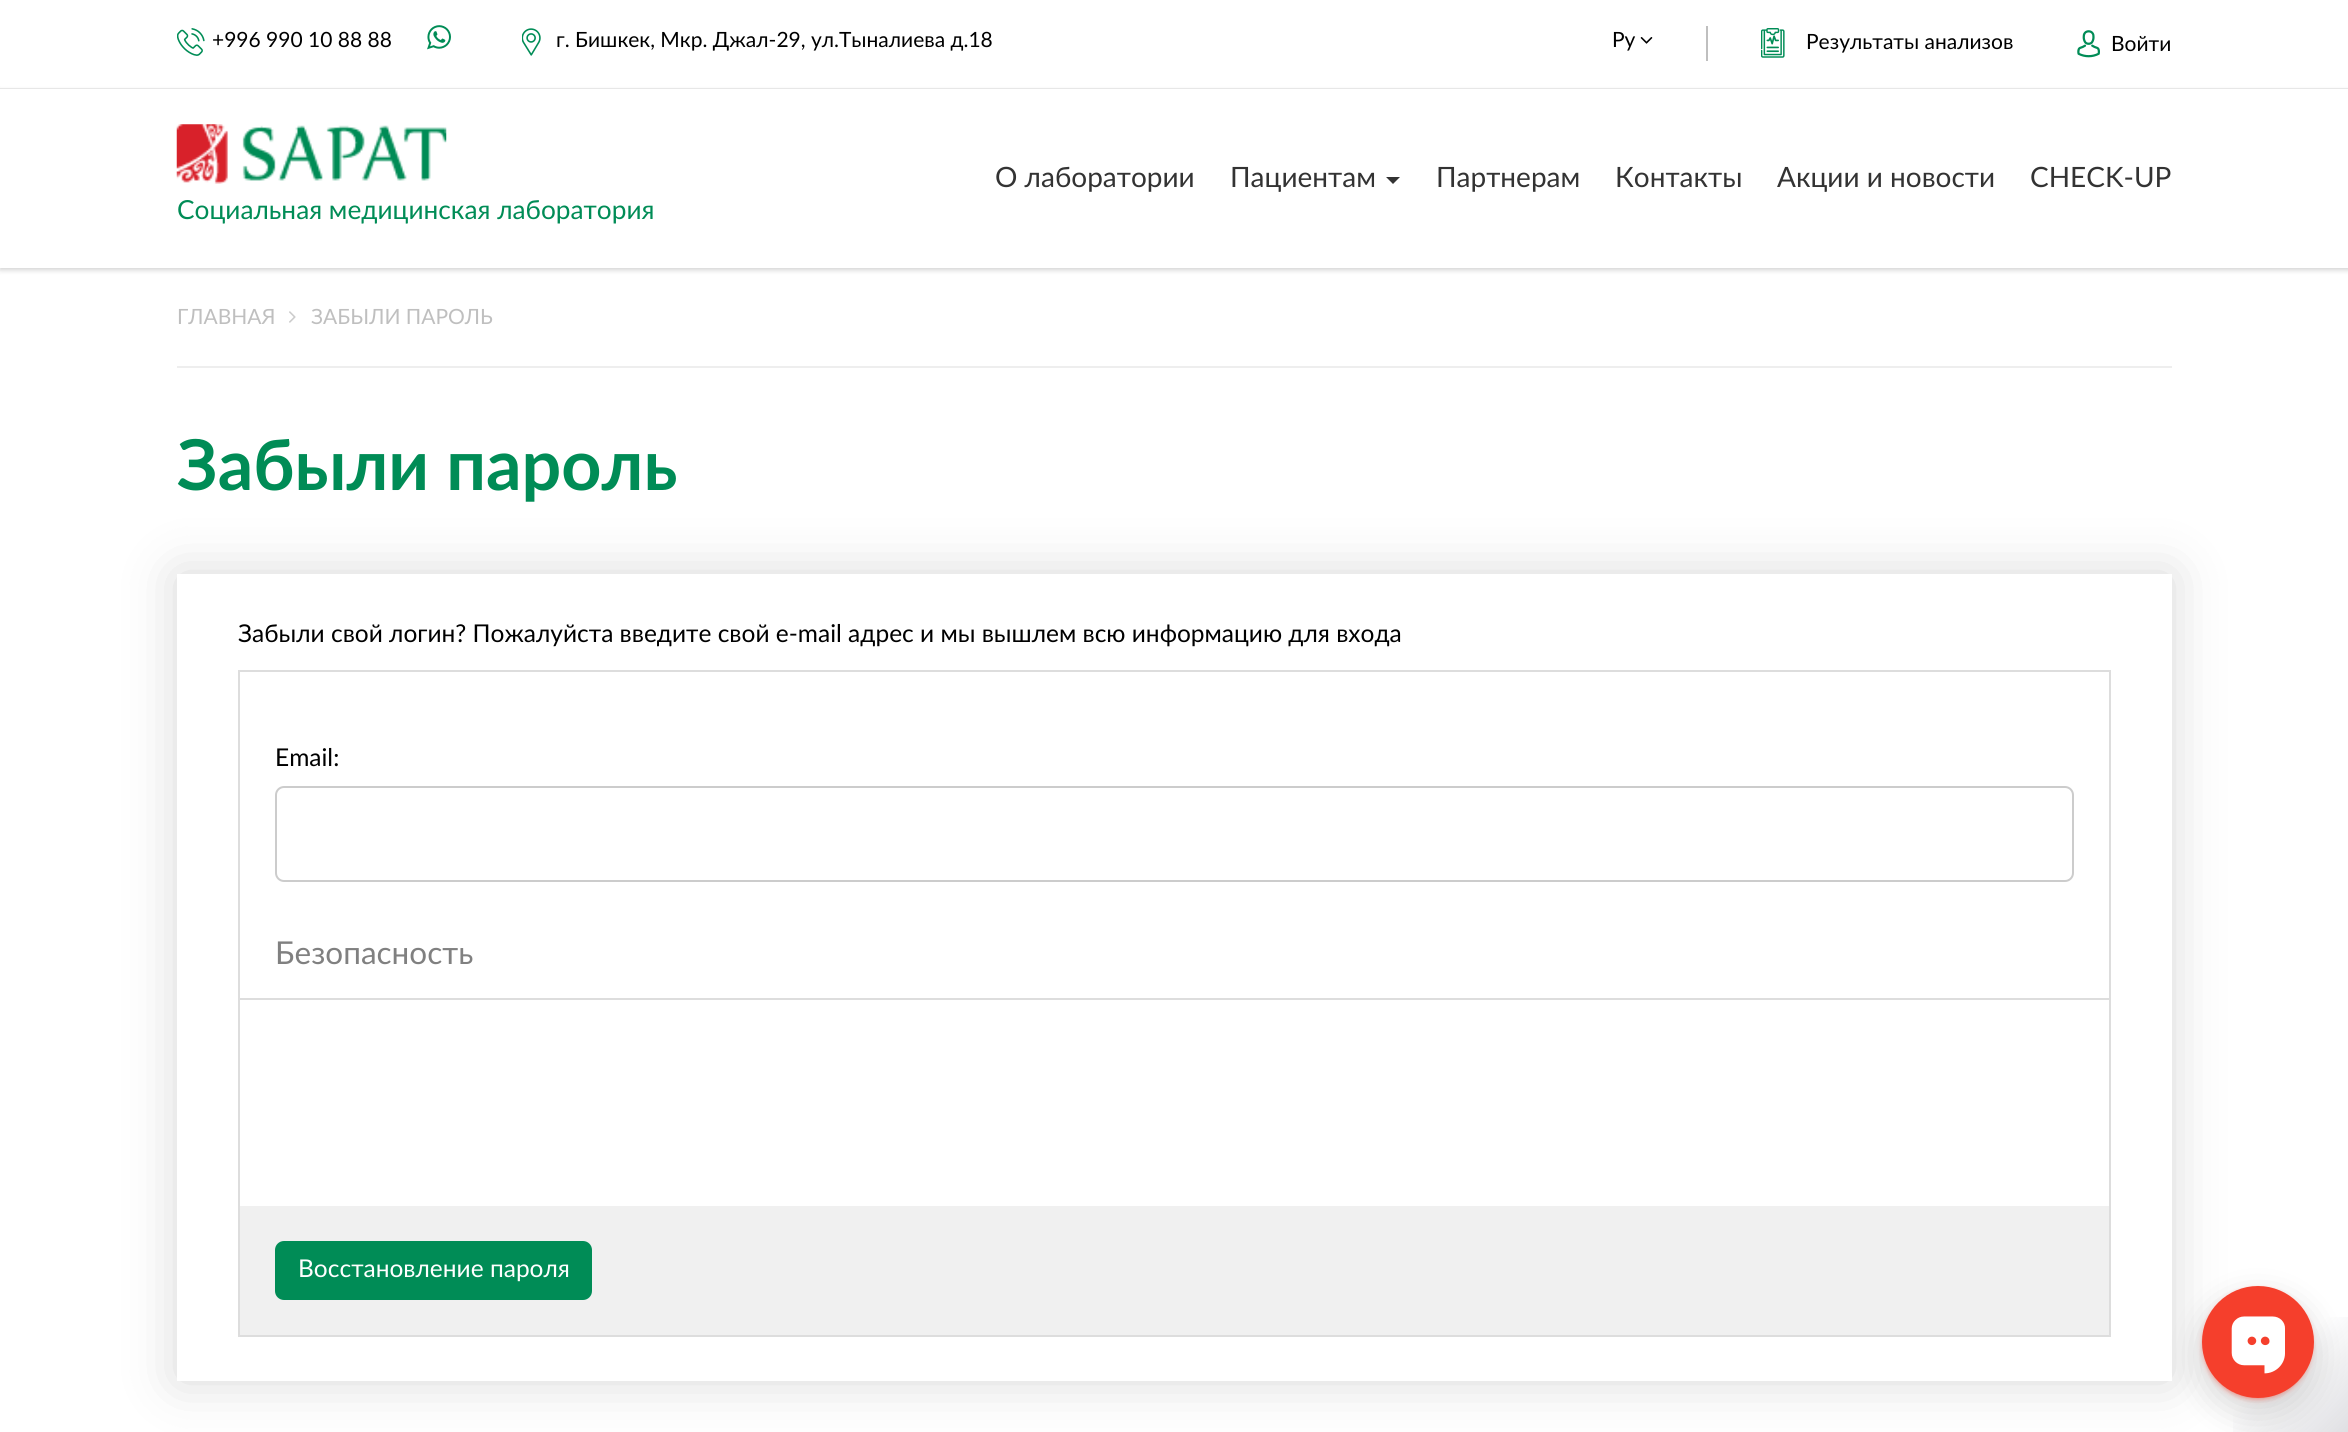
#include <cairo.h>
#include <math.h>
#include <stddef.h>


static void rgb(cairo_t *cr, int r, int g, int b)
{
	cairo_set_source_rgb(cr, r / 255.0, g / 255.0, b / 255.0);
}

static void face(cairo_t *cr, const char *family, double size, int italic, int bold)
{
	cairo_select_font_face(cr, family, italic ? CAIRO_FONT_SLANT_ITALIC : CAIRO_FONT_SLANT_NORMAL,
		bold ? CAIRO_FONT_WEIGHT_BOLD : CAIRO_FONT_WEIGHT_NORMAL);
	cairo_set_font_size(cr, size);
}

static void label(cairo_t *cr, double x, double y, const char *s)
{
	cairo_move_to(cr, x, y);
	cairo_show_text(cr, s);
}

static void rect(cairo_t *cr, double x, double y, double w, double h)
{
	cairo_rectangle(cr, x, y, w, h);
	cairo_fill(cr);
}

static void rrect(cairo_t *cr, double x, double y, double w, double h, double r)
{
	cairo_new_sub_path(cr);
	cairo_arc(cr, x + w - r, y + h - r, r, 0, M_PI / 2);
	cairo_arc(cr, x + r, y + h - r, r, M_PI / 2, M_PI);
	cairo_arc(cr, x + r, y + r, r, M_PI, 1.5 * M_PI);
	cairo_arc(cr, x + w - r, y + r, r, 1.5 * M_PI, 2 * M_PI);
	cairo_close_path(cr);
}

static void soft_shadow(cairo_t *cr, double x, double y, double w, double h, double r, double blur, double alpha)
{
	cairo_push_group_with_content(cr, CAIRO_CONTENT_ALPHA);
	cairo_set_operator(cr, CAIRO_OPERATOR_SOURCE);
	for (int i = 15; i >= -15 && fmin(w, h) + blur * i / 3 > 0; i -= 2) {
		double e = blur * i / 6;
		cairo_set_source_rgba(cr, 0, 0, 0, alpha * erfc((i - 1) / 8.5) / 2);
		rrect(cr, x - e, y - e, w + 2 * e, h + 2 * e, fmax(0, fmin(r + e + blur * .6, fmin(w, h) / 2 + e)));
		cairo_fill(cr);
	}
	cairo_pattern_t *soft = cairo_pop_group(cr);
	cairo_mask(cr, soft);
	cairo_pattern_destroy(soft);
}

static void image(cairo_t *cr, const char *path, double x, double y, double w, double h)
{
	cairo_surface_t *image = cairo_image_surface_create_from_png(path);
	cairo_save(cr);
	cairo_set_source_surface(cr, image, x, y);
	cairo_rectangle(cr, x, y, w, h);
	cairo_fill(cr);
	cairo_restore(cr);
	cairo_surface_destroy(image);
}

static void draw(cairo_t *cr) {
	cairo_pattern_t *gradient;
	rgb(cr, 255, 255, 255);
	cairo_paint(cr);
	rgb(cr, 238, 238, 238);
	rect(cr, 0, 88, 2348, 1);
	image(cr, "image0.png", 177, 28, 28, 28);
	face(cr, "Lato", 21, 0, 0);
	rgb(cr, 0, 0, 0);
	label(cr, 212, 47, "+996 990 10 88 88");
	image(cr, "image1.png", 427, 25, 24, 25);
	image(cr, "image2.png", 522, 28, 19, 28);
	label(cr, 556, 47, "г. Бишкек, Мкр. Джал-29, ул.Тыналиева д.18");
	label(cr, 1612, 47, "Ру");
	image(cr, "image3.png", 1640, 37, 13, 7);
	rgb(cr, 191, 191, 191);
	rect(cr, 1706, 26, 2, 35);
	image(cr, "image4.png", 1761, 28, 24, 30);
	rgb(cr, 0, 0, 0);
	label(cr, 1806, 49, "Результаты анализов");
	image(cr, "image5.png", 2077, 30, 23, 28);
	label(cr, 2111, 51, "Войти");
	rgb(cr, 0, 0, 0);
	soft_shadow(cr, 0, 91, 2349, 179, 0, 2.5, 0.18);
	rgb(cr, 255, 255, 255);
	rect(cr, 0, 89, 2348, 179);
	face(cr, "Lato", 28, 0, 0);
	rgb(cr, 51, 51, 51);
	label(cr, 995, 187, "О лаборатории");
	label(cr, 1230, 187, "Пациентам");
	cairo_new_path(cr);
	cairo_move_to(cr, 1386, 177);
	cairo_line_to(cr, 1400, 177);
	cairo_line_to(cr, 1393, 184);
	cairo_close_path(cr);
	cairo_fill(cr);
	label(cr, 1436, 187, "Партнерам");
	label(cr, 1615, 187, "Контакты");
	label(cr, 1777, 187, "Акции и новости");
	label(cr, 2030, 187, "CHECK-UP");
	image(cr, "image6.png", 176, 124, 271, 60);
	face(cr, "Lato", 26.25, 0, 0);
	rgb(cr, 0, 140, 86);
	label(cr, 177, 219, "Социальная медицинская лаборатория");
	face(cr, "Lato", 21, 0, 0);
	rgb(cr, 191, 191, 191);
	label(cr, 177, 324, "ГЛАВНАЯ");
	image(cr, "image7.png", 289, 311, 7, 12);
	label(cr, 311, 324, "ЗАБЫЛИ ПАРОЛЬ");
	rgb(cr, 238, 238, 238);
	rect(cr, 177, 366, 1995, 2);
	cairo_save(cr);
	cairo_set_fill_rule(cr, CAIRO_FILL_RULE_EVEN_ODD);
	cairo_new_path(cr);
	cairo_move_to(cr, 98, 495);
	cairo_line_to(cr, 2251, 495);
	cairo_line_to(cr, 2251, 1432);
	cairo_line_to(cr, 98, 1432);
	cairo_close_path(cr);
	cairo_move_to(cr, 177, 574);
	cairo_line_to(cr, 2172, 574);
	cairo_line_to(cr, 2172, 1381);
	cairo_line_to(cr, 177, 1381);
	cairo_close_path(cr);
	cairo_clip(cr);
	rgb(cr, 51, 51, 51);
	soft_shadow(cr, 177, 574, 1995, 807, 0, 26, 0.2);
	cairo_restore(cr);
	face(cr, "Lato", 70, 0, 1);
	rgb(cr, 0, 140, 86);
	label(cr, 177, 490, "Забыли пароль");
	face(cr, "Lato", 24.5, 0, 0);
	rgb(cr, 0, 0, 0);
	label(cr, 238, 642, "Забыли свой логин? Пожалуйста введите свой e-mail адрес и мы вышлем всю информацию для входа");
	cairo_rectangle(cr, 239, 671, 1871, 665);
	rgb(cr, 221, 221, 221);
	cairo_stroke(cr);
	rgb(cr, 0, 0, 0);
	label(cr, 275, 766, "Email:");
	rrect(cr, 276, 787, 1797, 94, 8);
	rgb(cr, 204, 204, 204);
	cairo_stroke(cr);
	rgb(cr, 221, 221, 221);
	rect(cr, 240, 998, 1869, 2);
	face(cr, "Lato", 31.5, 0, 0);
	rgb(cr, 128, 128, 128);
	label(cr, 275, 964, "Безопасность");
	rgb(cr, 240, 240, 240);
	rect(cr, 240, 1206, 1869, 129);
	rgb(cr, 0, 140, 86);
	rrect(cr, 276, 1242, 315, 57, 8);
	cairo_fill_preserve(cr);
	cairo_stroke(cr);
	face(cr, "Lato", 24.5, 0, 0);
	rgb(cr, 255, 255, 255);
	label(cr, 298, 1277, "Восстановление пароля");
	gradient = cairo_pattern_create_linear(2174, 1258, 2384, 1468);
	cairo_pattern_add_color_stop_rgba(gradient, 0.5, 0.055, 0.055, 0.161, 0);
	cairo_pattern_add_color_stop_rgba(gradient, 1, 0.055, 0.055, 0.161, 0.2);
	cairo_set_source(cr, gradient);
	cairo_pattern_destroy(gradient);
	rect(cr, 2233, 1317, 115, 115);
	rgb(cr, 0, 0, 0);
	soft_shadow(cr, 2202, 1300, 112, 112, 56, 17.5, 0.16);
	rgb(cr, 245, 63, 44);
	soft_shadow(cr, 2205, 1292, 105, 105, 52.5, 3.5, 1);
	rgb(cr, 245, 63, 44);
	cairo_arc(cr, 2258, 1342, 56, 0, 2 * M_PI);
	cairo_fill(cr);
	image(cr, "image8.png", 2231, 1316, 54, 58);
}

int main(void) {
	cairo_surface_t *surface = cairo_image_surface_create(CAIRO_FORMAT_RGB24, 2348, 1432);
	cairo_t *cr = cairo_create(surface);
	cairo_font_options_t *options = cairo_font_options_create();
	cairo_font_options_set_hint_metrics(options, CAIRO_HINT_METRICS_OFF);
	cairo_font_options_set_hint_style(options, CAIRO_HINT_STYLE_NONE);
	cairo_set_font_options(cr, options);
	cairo_set_miter_limit(cr, 4);
	draw(cr);
	cairo_surface_write_to_png(surface, "render.png");
	cairo_font_options_destroy(options);
	cairo_destroy(cr);
	cairo_surface_destroy(surface);
	return 0;
}
